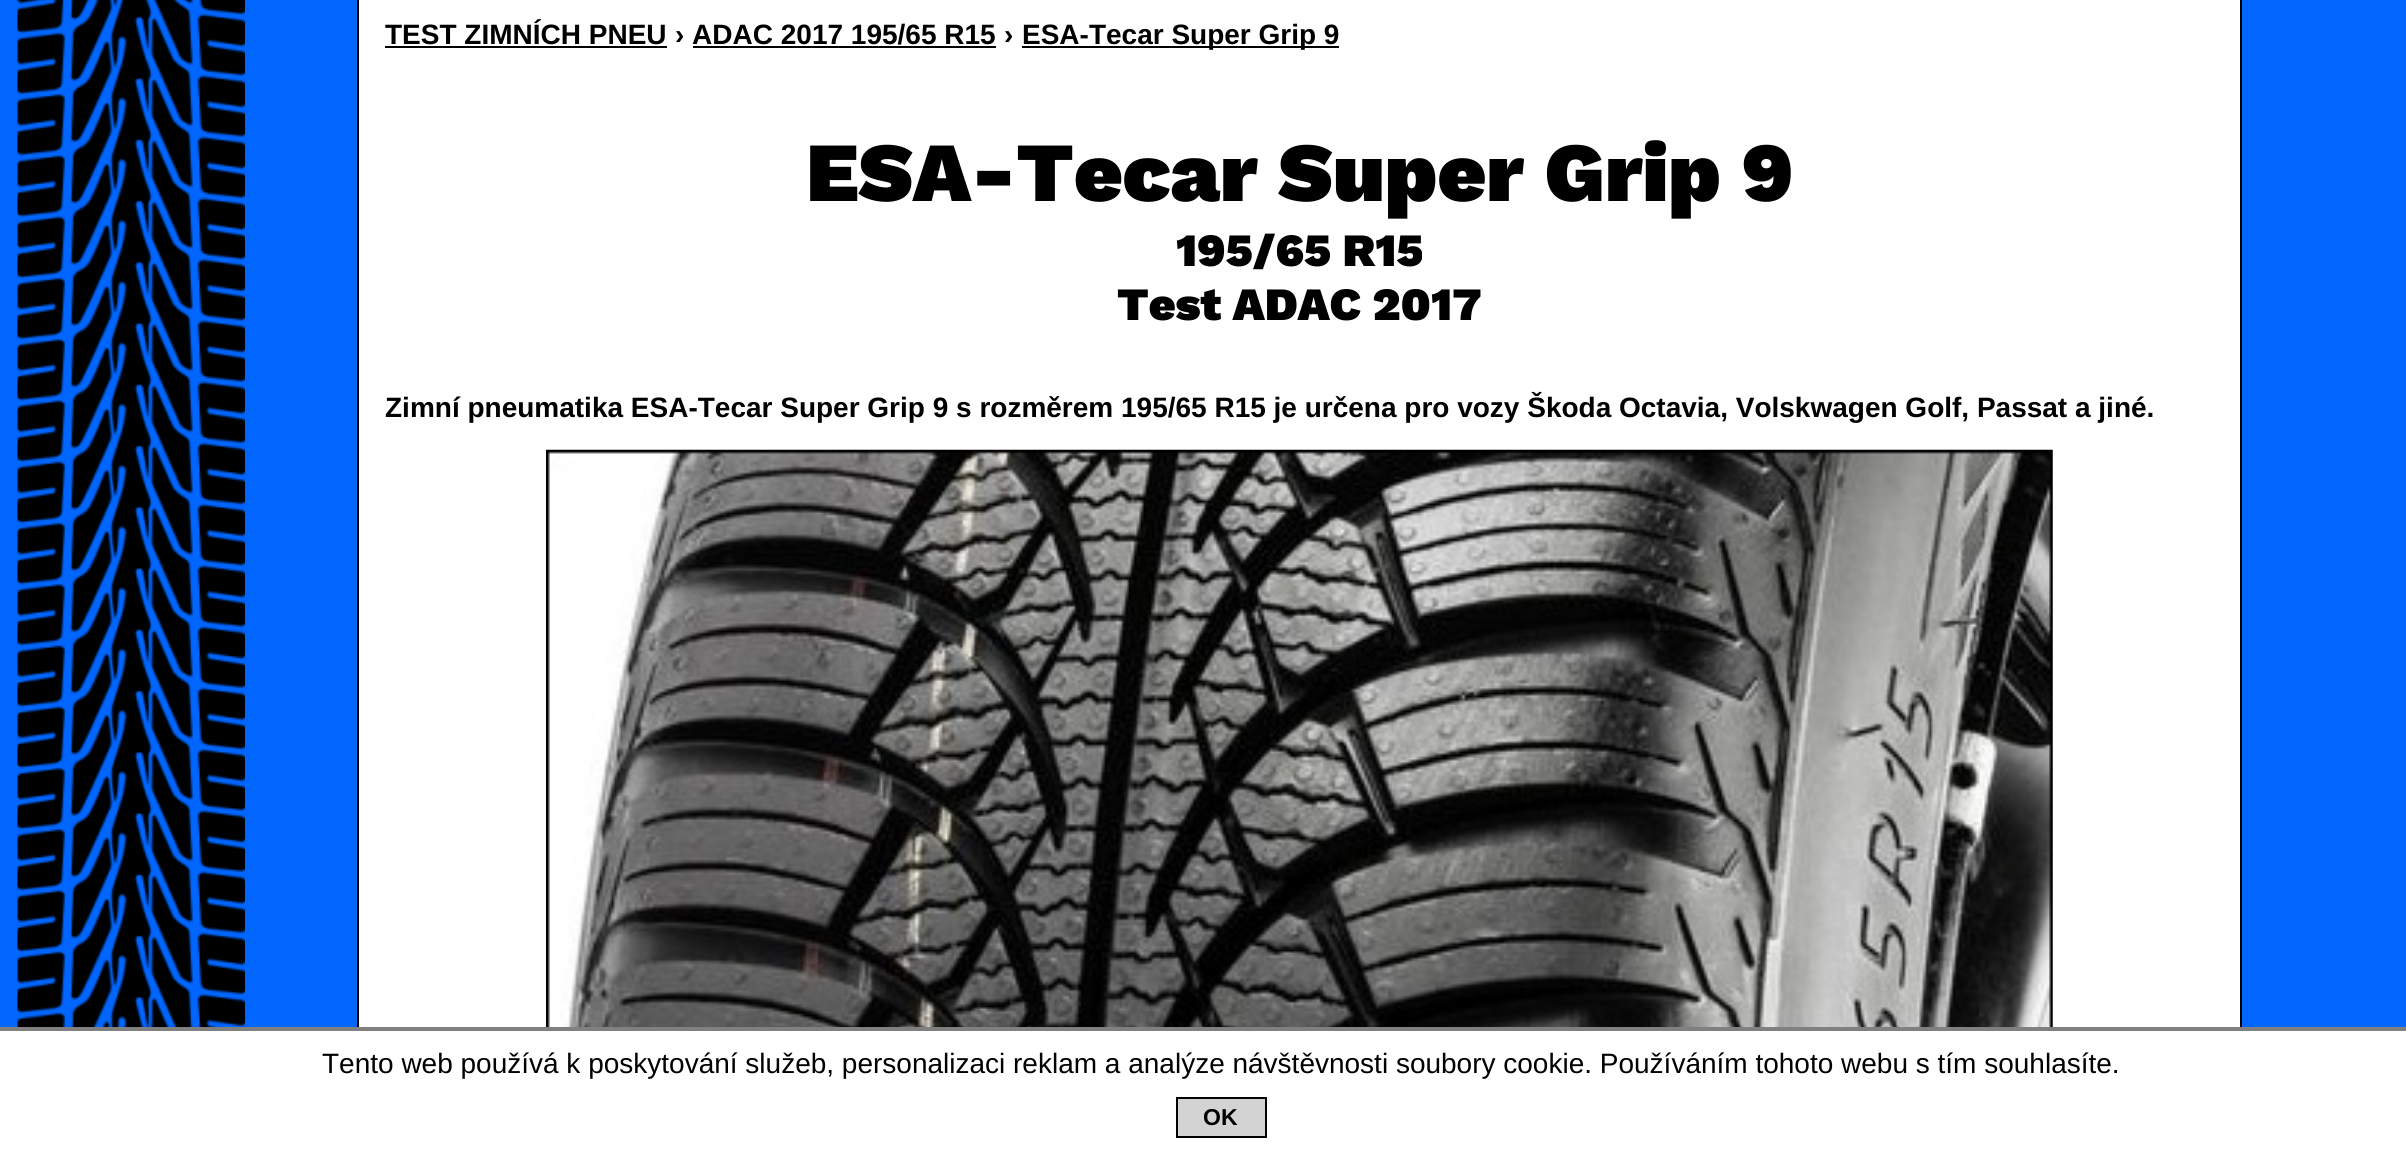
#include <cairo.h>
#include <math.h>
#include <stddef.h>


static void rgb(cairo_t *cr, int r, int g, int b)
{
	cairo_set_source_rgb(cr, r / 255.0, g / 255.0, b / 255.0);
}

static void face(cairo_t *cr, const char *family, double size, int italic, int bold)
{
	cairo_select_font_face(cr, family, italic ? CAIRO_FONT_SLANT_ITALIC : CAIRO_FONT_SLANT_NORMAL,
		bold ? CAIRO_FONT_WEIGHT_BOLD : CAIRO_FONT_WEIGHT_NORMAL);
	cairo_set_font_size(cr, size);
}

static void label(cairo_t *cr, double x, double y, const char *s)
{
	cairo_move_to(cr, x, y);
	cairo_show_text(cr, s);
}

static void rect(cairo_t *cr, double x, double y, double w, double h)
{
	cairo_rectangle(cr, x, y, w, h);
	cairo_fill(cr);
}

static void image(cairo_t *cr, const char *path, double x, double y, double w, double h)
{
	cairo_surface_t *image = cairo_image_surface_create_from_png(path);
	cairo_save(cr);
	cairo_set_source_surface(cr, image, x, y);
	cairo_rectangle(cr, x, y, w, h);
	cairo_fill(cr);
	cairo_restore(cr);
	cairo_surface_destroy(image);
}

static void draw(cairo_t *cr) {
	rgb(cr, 0, 102, 255);
	cairo_paint(cr);
	image(cr, "image0.png", 17, 0, 228, 1027);
	rgb(cr, 255, 255, 255);
	rect(cr, 359, 0, 1881, 1027);
	rgb(cr, 0, 0, 0);
	rect(cr, 2240, 0, 2, 1027);
	rect(cr, 357, 0, 2, 1027);
	face(cr, "Liberation Sans", 28, 0, 1);
	label(cr, 385, 44, "TEST ZIMNÍCH PNEU");
	rect(cr, 385, 46, 282, 2);
	label(cr, 675, 44, "› ADAC 2017 195/65 R15");
	rect(cr, 693, 46, 303, 2);
	label(cr, 1004, 44, "›");
	rect(cr, 1022, 46, 317, 2);
	label(cr, 1022, 44, "ESA-Tecar Super Grip 9");
	face(cr, "Work Sans Black", 84, 0, 0);
	label(cr, 806, 201, "ESA-Tecar Super Grip 9");
	face(cr, "Work Sans Black", 46.25, 0, 0);
	label(cr, 1176, 266, "195/65 R15");
	label(cr, 1117, 320, "Test ADAC 2017");
	face(cr, "Liberation Sans", 28, 0, 1);
	label(cr, 385, 417, "Zimní pneumatika ESA-Tecar Super Grip 9 s rozměrem 195/65 R15 je určena pro vozy Škoda Octavia, Volskwagen Golf, Passat a jiné.");
	image(cr, "image1.png", 546, 449, 1507, 578);
	rgb(cr, 255, 255, 255);
	rect(cr, 0, 1031, 2406, 140);
	rgb(cr, 128, 128, 128);
	rect(cr, 0, 1027, 2406, 4);
	face(cr, "Liberation Sans", 28, 0, 0);
	rgb(cr, 0, 0, 0);
	label(cr, 322, 1073, "Tento web používá k poskytování služeb, personalizaci reklam a analýze návštěvnosti soubory cookie. Používáním tohoto webu s tím souhlasíte.");
	rgb(cr, 211, 211, 211);
	cairo_rectangle(cr, 1177, 1098, 89, 39);
	cairo_fill_preserve(cr);
	rgb(cr, 0, 0, 0);
	cairo_stroke(cr);
	face(cr, "Liberation Sans", 23, 0, 1);
	label(cr, 1203, 1125, "OK");
}

int main(void) {
	cairo_surface_t *surface = cairo_image_surface_create(CAIRO_FORMAT_RGB24, 2406, 1171);
	cairo_t *cr = cairo_create(surface);
	cairo_font_options_t *options = cairo_font_options_create();
	cairo_font_options_set_hint_metrics(options, CAIRO_HINT_METRICS_OFF);
	cairo_font_options_set_hint_style(options, CAIRO_HINT_STYLE_NONE);
	cairo_set_font_options(cr, options);
	cairo_set_miter_limit(cr, 4);
	draw(cr);
	cairo_surface_write_to_png(surface, "render.png");
	cairo_font_options_destroy(options);
	cairo_destroy(cr);
	cairo_surface_destroy(surface);
	return 0;
}
